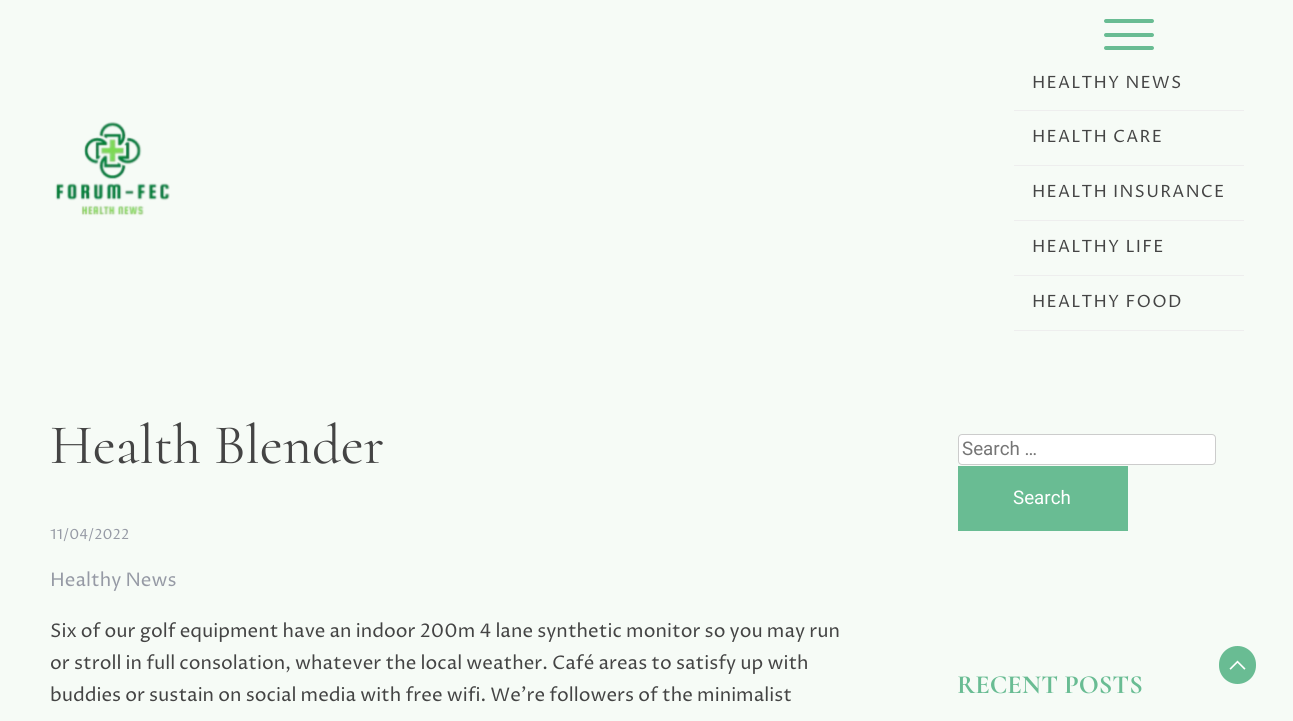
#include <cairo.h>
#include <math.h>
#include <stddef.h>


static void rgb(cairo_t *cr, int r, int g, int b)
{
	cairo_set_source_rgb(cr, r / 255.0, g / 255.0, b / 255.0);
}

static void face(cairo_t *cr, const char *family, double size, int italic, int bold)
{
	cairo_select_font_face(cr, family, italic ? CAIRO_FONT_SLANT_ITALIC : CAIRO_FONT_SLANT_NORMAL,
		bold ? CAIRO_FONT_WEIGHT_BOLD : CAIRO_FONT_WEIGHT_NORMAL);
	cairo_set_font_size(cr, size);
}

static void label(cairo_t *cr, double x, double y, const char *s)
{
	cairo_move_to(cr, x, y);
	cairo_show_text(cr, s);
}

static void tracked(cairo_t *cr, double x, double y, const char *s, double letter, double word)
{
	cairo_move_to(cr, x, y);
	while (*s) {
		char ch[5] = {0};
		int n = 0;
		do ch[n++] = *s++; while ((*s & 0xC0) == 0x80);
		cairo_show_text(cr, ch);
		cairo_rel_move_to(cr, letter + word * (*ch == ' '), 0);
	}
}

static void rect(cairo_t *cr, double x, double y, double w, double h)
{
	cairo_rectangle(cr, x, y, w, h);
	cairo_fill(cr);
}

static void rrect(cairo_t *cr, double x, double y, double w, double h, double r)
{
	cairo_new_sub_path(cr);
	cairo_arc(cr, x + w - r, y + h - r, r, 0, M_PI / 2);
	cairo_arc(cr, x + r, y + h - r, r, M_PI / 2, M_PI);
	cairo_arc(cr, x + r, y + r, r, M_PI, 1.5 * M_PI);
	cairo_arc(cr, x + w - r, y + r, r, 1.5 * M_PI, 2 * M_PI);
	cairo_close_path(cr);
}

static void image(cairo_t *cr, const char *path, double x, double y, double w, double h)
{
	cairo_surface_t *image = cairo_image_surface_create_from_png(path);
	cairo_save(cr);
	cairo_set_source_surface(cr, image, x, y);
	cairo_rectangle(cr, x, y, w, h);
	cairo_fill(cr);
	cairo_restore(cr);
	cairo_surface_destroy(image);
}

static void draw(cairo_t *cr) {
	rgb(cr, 246, 251, 246);
	cairo_paint(cr);
	image(cr, "image0.png", 55, 121, 115, 95);
	rgb(cr, 105, 188, 147);
	rrect(cr, 1104, 19, 50, 4, 2);
	cairo_fill(cr);
	rrect(cr, 1104, 33, 50, 4, 2);
	cairo_fill(cr);
	rrect(cr, 1104, 46, 50, 4, 2);
	cairo_fill(cr);
	rgb(cr, 238, 238, 238);
	rect(cr, 1014, 110, 230, 1);
	face(cr, "Proza Libre", 16.9, 0, 0);
	rgb(cr, 68, 68, 68);
	tracked(cr, 1032, 88, "HEALTHY NEWS", 1.25, 0);
	rgb(cr, 238, 238, 238);
	rect(cr, 1014, 165, 230, 1);
	rgb(cr, 68, 68, 68);
	tracked(cr, 1032, 142, "HEALTH CARE", 1.25, 0);
	rgb(cr, 238, 238, 238);
	rect(cr, 1014, 220, 230, 1);
	rgb(cr, 68, 68, 68);
	tracked(cr, 1032, 197, "HEALTH INSURANCE", 1.25, 0);
	rgb(cr, 238, 238, 238);
	rect(cr, 1014, 275, 230, 1);
	rgb(cr, 68, 68, 68);
	tracked(cr, 1032, 252, "HEALTHY LIFE", 1.25, 0);
	rgb(cr, 238, 238, 238);
	rect(cr, 1014, 330, 230, 1);
	rgb(cr, 68, 68, 68);
	tracked(cr, 1032, 307, "HEALTHY FOOD", 1.25, 0);
	face(cr, "Cormorant", 56.25, 0, 0);
	label(cr, 50, 463, "Health Blender");
	face(cr, "Proza Libre", 14, 0, 0);
	rgb(cr, 150, 154, 165);
	label(cr, 50, 539, "11/04/2022");
	face(cr, "Proza Libre", 18.75, 0, 0);
	label(cr, 50, 586, "Healthy News");
	rgb(cr, 68, 68, 68);
	label(cr, 50, 637, "Six of our golf equipment have an indoor 200m 4 lane synthetic monitor so you may run");
	label(cr, 50, 669, "or stroll in full consolation, whatever the local weather. Café areas to satisfy up with");
	label(cr, 50, 701, "buddies or sustain on social media with free wifi. We’re followers of the minimalist");
	rgb(cr, 255, 255, 255);
	rrect(cr, 958.5, 434.5, 257, 30, 3.5);
	cairo_fill_preserve(cr);
	rgb(cr, 204, 204, 204);
	cairo_set_line_width(cr, 1);
	cairo_stroke(cr);
	face(cr, "Roboto", 18.75, 0, 0);
	rgb(cr, 117, 117, 117);
	label(cr, 962, 455, "Search …");
	rgb(cr, 105, 188, 147);
	rect(cr, 958, 466, 170, 65);
	rgb(cr, 255, 255, 255);
	label(cr, 1013, 504, "Search");
	face(cr, "Cormorant", 26.25, 0, 1);
	rgb(cr, 105, 188, 147);
	label(cr, 957, 693, "RECENT POSTS");
	rrect(cr, 1219, 646, 37, 38, 18.5);
	cairo_fill(cr);
	image(cr, "image1.png", 1229, 660, 17, 10);
}

int main(void) {
	cairo_surface_t *surface = cairo_image_surface_create(CAIRO_FORMAT_RGB24, 1293, 721);
	cairo_t *cr = cairo_create(surface);
	cairo_font_options_t *options = cairo_font_options_create();
	cairo_font_options_set_hint_metrics(options, CAIRO_HINT_METRICS_OFF);
	cairo_font_options_set_hint_style(options, CAIRO_HINT_STYLE_NONE);
	cairo_set_font_options(cr, options);
	cairo_set_miter_limit(cr, 4);
	draw(cr);
	cairo_surface_write_to_png(surface, "render.png");
	cairo_font_options_destroy(options);
	cairo_destroy(cr);
	cairo_surface_destroy(surface);
	return 0;
}
